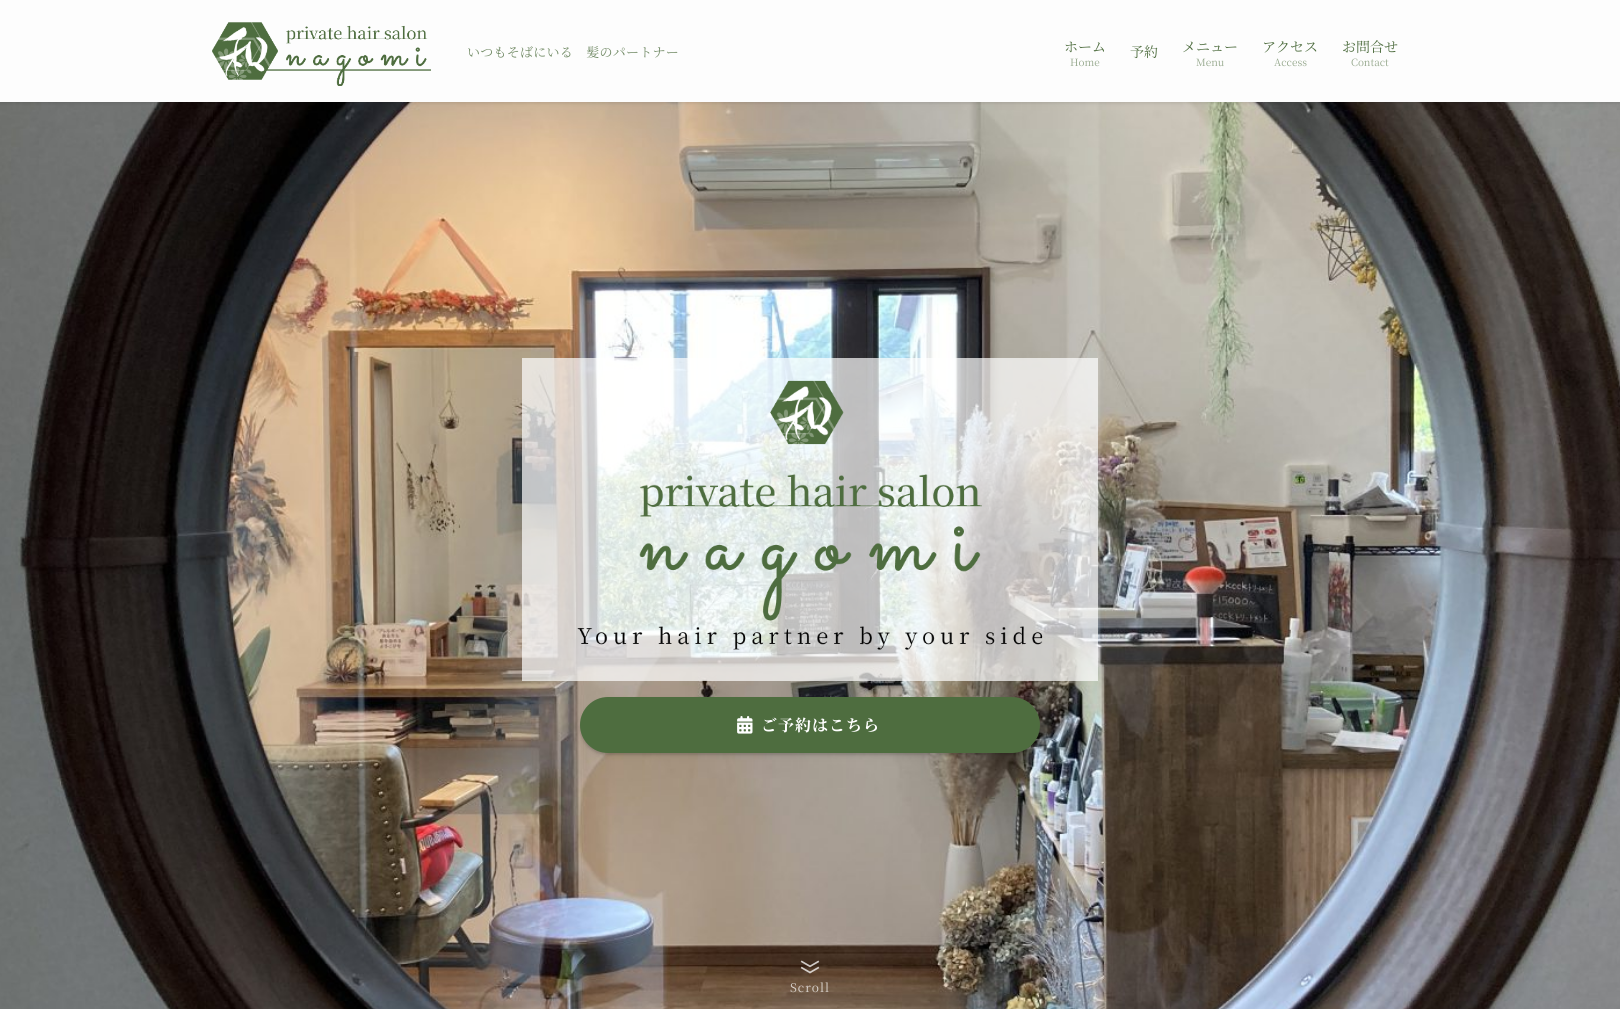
#include <cairo.h>
#include <math.h>
#include <stddef.h>


static void rgb(cairo_t *cr, int r, int g, int b)
{
	cairo_set_source_rgb(cr, r / 255.0, g / 255.0, b / 255.0);
}

static void face(cairo_t *cr, const char *family, double size, int italic, int bold)
{
	cairo_select_font_face(cr, family, italic ? CAIRO_FONT_SLANT_ITALIC : CAIRO_FONT_SLANT_NORMAL,
		bold ? CAIRO_FONT_WEIGHT_BOLD : CAIRO_FONT_WEIGHT_NORMAL);
	cairo_set_font_size(cr, size);
}

static void label(cairo_t *cr, double x, double y, const char *s)
{
	cairo_move_to(cr, x, y);
	cairo_show_text(cr, s);
}

static void tracked(cairo_t *cr, double x, double y, const char *s, double letter, double word)
{
	cairo_move_to(cr, x, y);
	while (*s) {
		char ch[5] = {0};
		int n = 0;
		do ch[n++] = *s++; while ((*s & 0xC0) == 0x80);
		cairo_show_text(cr, ch);
		cairo_rel_move_to(cr, letter + word * (*ch == ' '), 0);
	}
}

static void rect(cairo_t *cr, double x, double y, double w, double h)
{
	cairo_rectangle(cr, x, y, w, h);
	cairo_fill(cr);
}

static void rrect(cairo_t *cr, double x, double y, double w, double h, double r)
{
	cairo_new_sub_path(cr);
	cairo_arc(cr, x + w - r, y + h - r, r, 0, M_PI / 2);
	cairo_arc(cr, x + r, y + h - r, r, M_PI / 2, M_PI);
	cairo_arc(cr, x + r, y + r, r, M_PI, 1.5 * M_PI);
	cairo_arc(cr, x + w - r, y + r, r, 1.5 * M_PI, 2 * M_PI);
	cairo_close_path(cr);
}

static void soft_shadow(cairo_t *cr, double x, double y, double w, double h, double r, double blur, double alpha)
{
	cairo_push_group_with_content(cr, CAIRO_CONTENT_ALPHA);
	cairo_set_operator(cr, CAIRO_OPERATOR_SOURCE);
	for (int i = 15; i >= -15 && fmin(w, h) + blur * i / 3 > 0; i -= 2) {
		double e = blur * i / 6;
		cairo_set_source_rgba(cr, 0, 0, 0, alpha * erfc((i - 1) / 8.5) / 2);
		rrect(cr, x - e, y - e, w + 2 * e, h + 2 * e, fmax(0, fmin(r + e + blur * .6, fmin(w, h) / 2 + e)));
		cairo_fill(cr);
	}
	cairo_pattern_t *soft = cairo_pop_group(cr);
	cairo_mask(cr, soft);
	cairo_pattern_destroy(soft);
}

static void image(cairo_t *cr, const char *path, double x, double y, double w, double h)
{
	cairo_surface_t *image = cairo_image_surface_create_from_png(path);
	cairo_save(cr);
	cairo_set_source_surface(cr, image, x, y);
	cairo_rectangle(cr, x, y, w, h);
	cairo_fill(cr);
	cairo_restore(cr);
	cairo_surface_destroy(image);
}

static void draw(cairo_t *cr) {
	rgb(cr, 255, 255, 255);
	cairo_paint(cr);
	image(cr, "image1.png", 0, 102, 1620, 907);
	rgb(cr, 0, 0, 0);
	soft_shadow(cr, 0, 1, 1620, 102, 0, 2, 0.12);
	rgb(cr, 253, 253, 253);
	rect(cr, 0, 0, 1620, 102);
	image(cr, "image0.png", 212, 22, 219, 64);
	face(cr, "Noto Serif JP", 13, 0, 0);
	rgb(cr, 113, 138, 101);
	tracked(cr, 467, 57, "いつもそばにいる　髪のパートナー", 0.25, 0);
	face(cr, "Noto Serif JP", 14, 0, 0);
	rgb(cr, 78, 109, 63);
	label(cr, 1064, 52, "ホーム");
	face(cr, "Noto Serif JP", 10, 0, 0);
	rgb(cr, 148, 167, 139);
	label(cr, 1070, 66, "Home");
	face(cr, "Noto Serif JP", 14, 0, 0);
	rgb(cr, 78, 109, 63);
	label(cr, 1130, 57, "予約");
	label(cr, 1182, 52, "メニュー");
	face(cr, "Noto Serif JP", 10, 0, 0);
	rgb(cr, 148, 167, 139);
	label(cr, 1196, 66, "Menu");
	face(cr, "Noto Serif JP", 14, 0, 0);
	rgb(cr, 78, 109, 63);
	label(cr, 1262, 52, "アクセス");
	face(cr, "Noto Serif JP", 10, 0, 0);
	rgb(cr, 148, 167, 139);
	label(cr, 1274, 66, "Access");
	face(cr, "Noto Serif JP", 14, 0, 0);
	rgb(cr, 78, 109, 63);
	label(cr, 1342, 52, "お問合せ");
	face(cr, "Noto Serif JP", 10, 0, 0);
	rgb(cr, 148, 167, 139);
	label(cr, 1351, 66, "Contact");
	image(cr, "image2.png", 522, 358, 576, 323);
	rgb(cr, 0, 0, 0);
	soft_shadow(cr, 584, 705, 452, 48, 24, 4, 0.2);
	soft_shadow(cr, 580, 699, 460, 56, 28, 1, 0.1);
	rgb(cr, 78, 109, 63);
	rrect(cr, 580, 697, 460, 56, 28);
	cairo_fill(cr);
	image(cr, "image3.png", 737, 716, 16, 18);
	face(cr, "Noto Serif JP", 16, 0, 1);
	rgb(cr, 255, 255, 255);
	tracked(cr, 761, 731, "ご予約はこちら", 1, 0);
	image(cr, "image4.png", 800, 960, 20, 14);
	face(cr, "Noto Serif JP", 12, 0, 0);
	rgb(cr, 220, 214, 209);
	tracked(cr, 790, 992, "Scroll", 1, 0);
}

int main(void) {
	cairo_surface_t *surface = cairo_image_surface_create(CAIRO_FORMAT_RGB24, 1620, 1009);
	cairo_t *cr = cairo_create(surface);
	cairo_font_options_t *options = cairo_font_options_create();
	cairo_font_options_set_hint_metrics(options, CAIRO_HINT_METRICS_OFF);
	cairo_font_options_set_hint_style(options, CAIRO_HINT_STYLE_NONE);
	cairo_set_font_options(cr, options);
	cairo_set_miter_limit(cr, 4);
	draw(cr);
	cairo_surface_write_to_png(surface, "render.png");
	cairo_font_options_destroy(options);
	cairo_destroy(cr);
	cairo_surface_destroy(surface);
	return 0;
}
